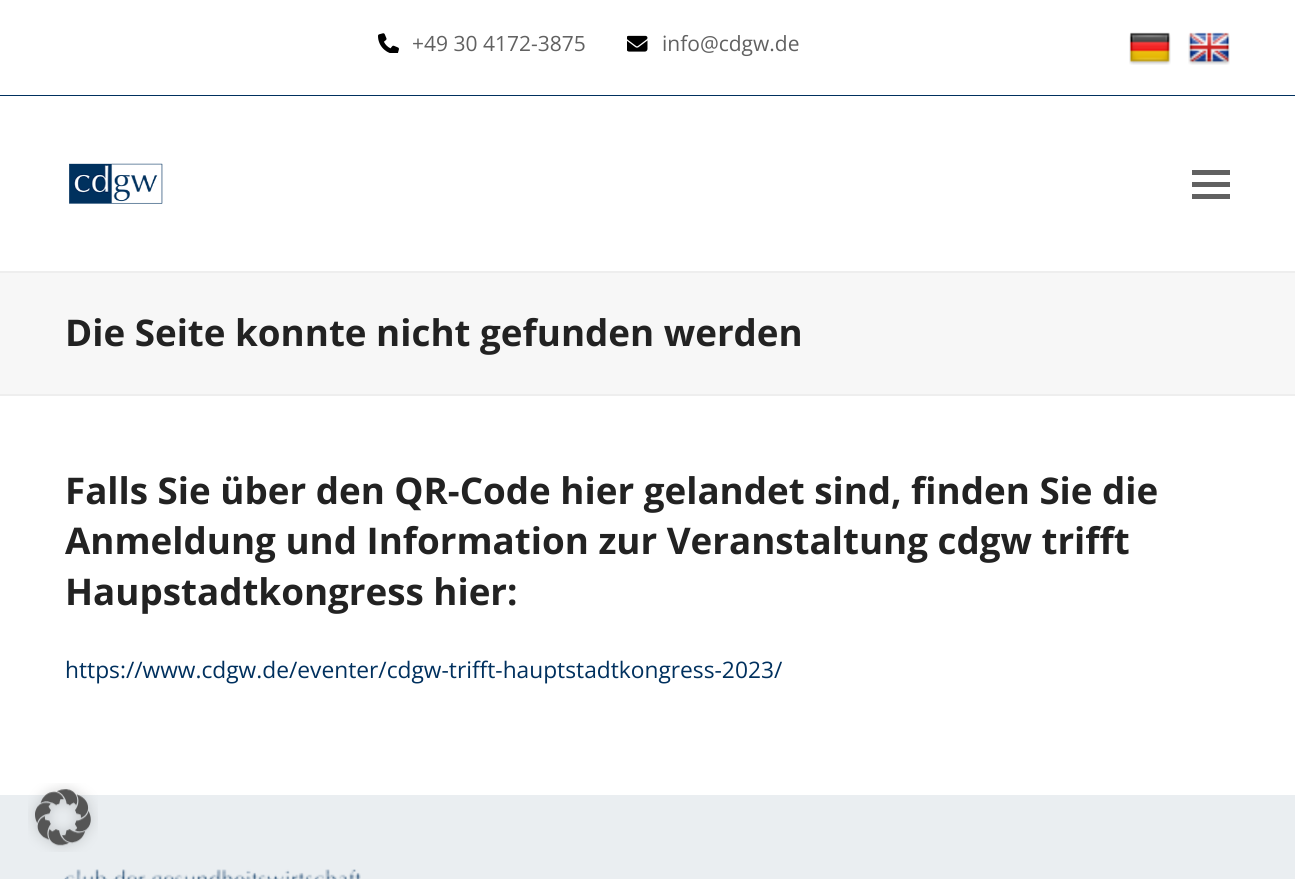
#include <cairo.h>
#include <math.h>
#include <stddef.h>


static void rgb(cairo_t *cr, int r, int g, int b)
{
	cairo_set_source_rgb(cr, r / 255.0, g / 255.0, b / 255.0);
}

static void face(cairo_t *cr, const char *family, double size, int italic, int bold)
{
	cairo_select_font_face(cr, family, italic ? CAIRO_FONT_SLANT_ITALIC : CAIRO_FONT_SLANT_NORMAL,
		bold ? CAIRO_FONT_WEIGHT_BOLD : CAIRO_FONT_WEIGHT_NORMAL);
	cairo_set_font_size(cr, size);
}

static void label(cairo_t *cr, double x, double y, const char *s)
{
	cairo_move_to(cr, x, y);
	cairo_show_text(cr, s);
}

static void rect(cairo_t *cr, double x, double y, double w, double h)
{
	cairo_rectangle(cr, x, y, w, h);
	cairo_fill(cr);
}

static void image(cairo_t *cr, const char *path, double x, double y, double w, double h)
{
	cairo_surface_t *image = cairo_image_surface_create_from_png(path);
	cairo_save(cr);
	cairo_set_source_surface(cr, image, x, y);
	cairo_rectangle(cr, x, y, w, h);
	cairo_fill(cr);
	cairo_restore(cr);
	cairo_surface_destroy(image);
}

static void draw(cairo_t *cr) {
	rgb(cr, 255, 255, 255);
	cairo_paint(cr);
	rgb(cr, 0, 48, 94);
	rect(cr, 0, 95, 1295, 1);
	image(cr, "image0.png", 378, 33, 21, 20);
	face(cr, "Open Sans", 21, 0, 0);
	rgb(cr, 97, 97, 97);
	label(cr, 412, 51, "+49 30 4172-3875");
	image(cr, "image1.png", 627, 35, 21, 17);
	label(cr, 662, 51, "info@cdgw.de");
	image(cr, "image2.png", 1129, 32, 42, 33);
	image(cr, "image3.png", 1188, 32, 42, 33);
	image(cr, "image4.png", 69, 163, 94, 41);
	rect(cr, 1192, 182, 38, 5);
	rect(cr, 1192, 170, 38, 5);
	rect(cr, 1192, 194, 38, 5);
	rgb(cr, 247, 247, 247);
	rect(cr, 0, 273, 1295, 121);
	rgb(cr, 238, 238, 238);
	rect(cr, 0, 271, 1295, 2);
	rect(cr, 0, 394, 1295, 2);
	face(cr, "Open Sans", 36.75, 0, 1);
	rgb(cr, 34, 34, 34);
	label(cr, 65, 346, "Die Seite konnte nicht gefunden werden");
	label(cr, 65, 504, "Falls Sie über den QR-Code hier gelandet sind, finden Sie die");
	label(cr, 65, 554, "Anmeldung und Information zur Veranstaltung cdgw trifft");
	label(cr, 65, 605, "Haupstadtkongress hier:");
	face(cr, "Open Sans", 22.75, 0, 0);
	rgb(cr, 0, 48, 94);
	label(cr, 65, 678, "https://www.cdgw.de/eventer/cdgw-trifft-hauptstadtkongress-2023/");
	rgb(cr, 234, 238, 241);
	rect(cr, 0, 795, 1295, 84);
	image(cr, "image5.png", 64, 869, 297, 10);
	image(cr, "image6.png", 28, 783, 70, 69);
}

int main(void) {
	cairo_surface_t *surface = cairo_image_surface_create(CAIRO_FORMAT_RGB24, 1295, 879);
	cairo_t *cr = cairo_create(surface);
	cairo_font_options_t *options = cairo_font_options_create();
	cairo_font_options_set_hint_metrics(options, CAIRO_HINT_METRICS_OFF);
	cairo_font_options_set_hint_style(options, CAIRO_HINT_STYLE_NONE);
	cairo_set_font_options(cr, options);
	cairo_set_miter_limit(cr, 4);
	draw(cr);
	cairo_surface_write_to_png(surface, "render.png");
	cairo_font_options_destroy(options);
	cairo_destroy(cr);
	cairo_surface_destroy(surface);
	return 0;
}
